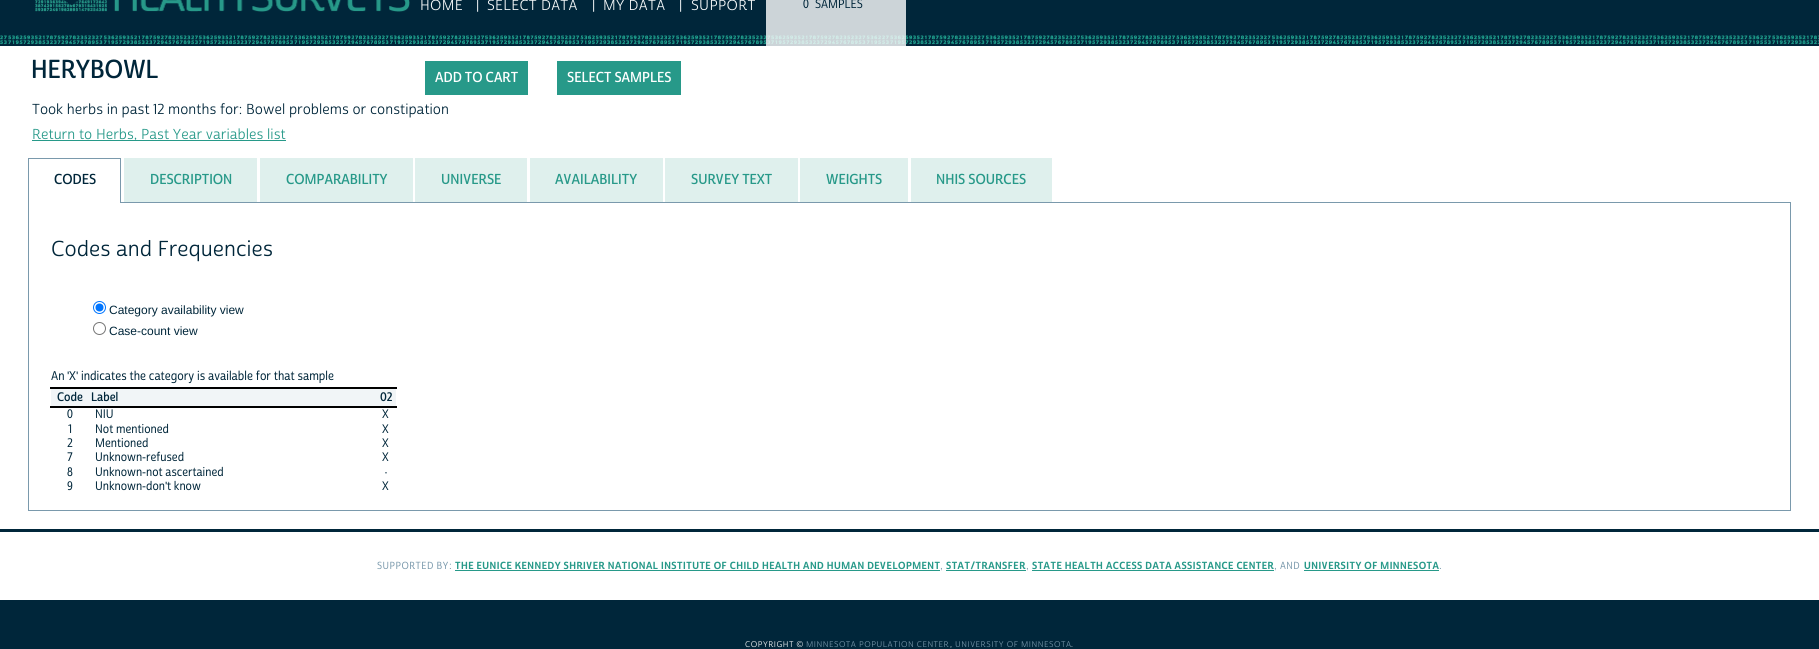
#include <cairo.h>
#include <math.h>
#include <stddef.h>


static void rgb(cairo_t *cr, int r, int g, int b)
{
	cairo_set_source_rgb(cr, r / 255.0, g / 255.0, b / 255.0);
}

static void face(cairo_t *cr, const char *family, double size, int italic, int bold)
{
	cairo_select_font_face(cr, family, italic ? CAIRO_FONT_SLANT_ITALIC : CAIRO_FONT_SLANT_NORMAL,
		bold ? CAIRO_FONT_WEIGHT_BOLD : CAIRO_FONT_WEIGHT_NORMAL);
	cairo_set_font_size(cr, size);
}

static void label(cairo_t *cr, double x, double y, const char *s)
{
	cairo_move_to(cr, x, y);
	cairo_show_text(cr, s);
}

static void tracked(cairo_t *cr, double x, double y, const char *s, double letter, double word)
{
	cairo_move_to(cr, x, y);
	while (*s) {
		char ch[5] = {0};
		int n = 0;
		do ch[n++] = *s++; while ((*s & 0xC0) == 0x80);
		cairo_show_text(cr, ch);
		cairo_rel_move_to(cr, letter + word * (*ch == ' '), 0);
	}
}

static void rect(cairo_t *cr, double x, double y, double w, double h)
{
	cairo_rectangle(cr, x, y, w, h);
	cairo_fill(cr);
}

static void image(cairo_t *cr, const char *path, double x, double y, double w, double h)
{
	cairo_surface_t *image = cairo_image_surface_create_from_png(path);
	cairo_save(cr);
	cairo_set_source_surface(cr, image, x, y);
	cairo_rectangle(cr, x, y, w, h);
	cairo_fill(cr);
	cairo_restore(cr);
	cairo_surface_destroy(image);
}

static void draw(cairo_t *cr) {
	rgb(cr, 0, 38, 58);
	cairo_paint(cr);
	image(cr, "image0.png", 0, 35, 1819, 10);
	image(cr, "image1.png", 35, 0, 375, 12);
	face(cr, "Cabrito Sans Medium", 14, 0, 0);
	rgb(cr, 245, 248, 249);
	tracked(cr, 420, 10, "HOME", 0.3, 0);
	tracked(cr, 476, 10, "|", 0.3, 0);
	tracked(cr, 487, 10, "SELECT DATA", 0.3, 0);
	tracked(cr, 592, 10, "|", 0.3, 0);
	tracked(cr, 603, 10, "MY DATA", 0.3, 0);
	tracked(cr, 679, 10, "|", 0.3, 0);
	tracked(cr, 691, 10, "SUPPORT", 0.3, 0);
	cairo_set_source_rgba(cr, 1, 1, 1, 0.8);
	rect(cr, 766, 0, 140, 46);
	face(cr, "Cabrito Sans SemiBold", 12, 0, 0);
	rgb(cr, 0, 38, 58);
	label(cr, 803, 8, "0");
	label(cr, 815, 8, "SAMPLES");
	rgb(cr, 255, 255, 255);
	rect(cr, 0, 46, 1819, 483);
	face(cr, "Cabrito Sans", 25.25, 0, 1);
	rgb(cr, 0, 38, 58);
	label(cr, 31, 78, "HERYBOWL");
	face(cr, "Cabrito Sans Medium", 14, 0, 0);
	label(cr, 32, 114, "Took herbs in past 12 months for: Bowel problems or constipation");
	rgb(cr, 39, 153, 137);
	rect(cr, 32, 140, 254, 1);
	label(cr, 32, 139, "Return to Herbs, Past Year variables list");
	rect(cr, 425, 61, 103, 34);
	face(cr, "Cabrito Sans", 14, 0, 1);
	rgb(cr, 255, 255, 255);
	label(cr, 435, 82, "ADD TO CART");
	rgb(cr, 39, 153, 137);
	rect(cr, 557, 61, 124, 34);
	rgb(cr, 255, 255, 255);
	label(cr, 567, 82, "SELECT SAMPLES");
	cairo_rectangle(cr, 28.5, 202.5, 1762, 308);
	rgb(cr, 122, 153, 172);
	cairo_set_line_width(cr, 1);
	cairo_stroke(cr);
	rgb(cr, 255, 255, 255);
	rect(cr, 29, 202, 91, 1);
	rgb(cr, 122, 153, 172);
	rect(cr, 28, 158, 93, 1);
	rect(cr, 120, 158, 1, 45);
	rect(cr, 28, 158, 1, 45);
	rgb(cr, 0, 38, 58);
	label(cr, 54, 184, "CODES");
	rgb(cr, 223, 240, 237);
	rect(cr, 125, 159, 131, 43);
	rect(cr, 124, 158, 133, 1);
	rect(cr, 256, 158, 1, 44);
	rect(cr, 124, 158, 1, 44);
	rgb(cr, 39, 153, 137);
	label(cr, 150, 184, "DESCRIPTION");
	rgb(cr, 223, 240, 237);
	rect(cr, 261, 159, 151, 43);
	rect(cr, 260, 158, 153, 1);
	rect(cr, 412, 158, 1, 44);
	rect(cr, 260, 158, 1, 44);
	rgb(cr, 39, 153, 137);
	label(cr, 286, 184, "COMPARABILITY");
	rgb(cr, 223, 240, 237);
	rect(cr, 416, 159, 110, 43);
	rect(cr, 415, 158, 112, 1);
	rect(cr, 526, 158, 1, 44);
	rect(cr, 415, 158, 1, 44);
	rgb(cr, 39, 153, 137);
	label(cr, 441, 184, "UNIVERSE");
	rgb(cr, 223, 240, 237);
	rect(cr, 531, 159, 131, 43);
	rect(cr, 530, 158, 133, 1);
	rect(cr, 662, 158, 1, 44);
	rect(cr, 530, 158, 1, 44);
	rgb(cr, 39, 153, 137);
	label(cr, 555, 184, "AVAILABILITY");
	rgb(cr, 223, 240, 237);
	rect(cr, 666, 159, 131, 43);
	rect(cr, 665, 158, 133, 1);
	rect(cr, 797, 158, 1, 44);
	rect(cr, 665, 158, 1, 44);
	rgb(cr, 39, 153, 137);
	label(cr, 691, 184, "SURVEY TEXT");
	rgb(cr, 223, 240, 237);
	rect(cr, 801, 159, 106, 43);
	rect(cr, 800, 158, 108, 1);
	rect(cr, 907, 158, 1, 44);
	rect(cr, 800, 158, 1, 44);
	rgb(cr, 39, 153, 137);
	label(cr, 826, 184, "WEIGHTS");
	rgb(cr, 223, 240, 237);
	rect(cr, 912, 159, 139, 43);
	rect(cr, 911, 158, 141, 1);
	rect(cr, 1051, 158, 1, 44);
	rect(cr, 911, 158, 1, 44);
	rgb(cr, 39, 153, 137);
	label(cr, 936, 184, "NHIS SOURCES");
	face(cr, "Cabrito Sans Medium", 21, 0, 0);
	rgb(cr, 0, 38, 58);
	label(cr, 51, 256, "Codes and Frequencies");
	cairo_new_path(cr);
	cairo_arc(cr, 99.5, 307.5, 6, 0, 2 * M_PI);
	rgb(cr, 0, 117, 255);
	cairo_stroke(cr);
	cairo_arc(cr, 99.5, 307.5, 4, 0, 2 * M_PI);
	cairo_fill(cr);
	face(cr, "Liberation Sans", 12, 0, 0);
	rgb(cr, 0, 38, 58);
	label(cr, 109, 314, "Category availability view");
	cairo_new_path(cr);
	cairo_arc(cr, 99.5, 328.5, 6, 0, 2 * M_PI);
	rgb(cr, 118, 118, 118);
	cairo_stroke(cr);
	rgb(cr, 0, 38, 58);
	label(cr, 109, 335, "Case-count view");
	face(cr, "Cabrito Sans SemiBold", 12.3, 0, 0);
	label(cr, 51, 380, "An");
	face(cr, "Liberation Sans", 12.3, 0, 0);
	label(cr, 67, 380, "'");
	face(cr, "Cabrito Sans SemiBold", 12.3, 0, 0);
	label(cr, 69, 380, "X");
	face(cr, "Liberation Sans", 12.3, 0, 0);
	label(cr, 76, 380, "'");
	face(cr, "Cabrito Sans SemiBold", 12.3, 0, 0);
	label(cr, 81, 380, "indicates the category is available for that sample");
	rgb(cr, 241, 245, 247);
	rect(cr, 51, 389, 345, 17);
	face(cr, "Cabrito Sans", 12, 0, 1);
	rgb(cr, 0, 38, 58);
	label(cr, 57, 401, "Code");
	label(cr, 91, 401, "Label");
	rgb(cr, 0, 0, 0);
	rect(cr, 50, 387, 347, 2);
	rect(cr, 50, 406, 347, 2);
	rgb(cr, 0, 38, 58);
	label(cr, 380, 401, "02");
	face(cr, "Cabrito Sans SemiBold", 12, 0, 0);
	label(cr, 67, 418, "0");
	label(cr, 95, 418, "NIU");
	label(cr, 382, 418, "X");
	label(cr, 67, 433, "1");
	label(cr, 95, 433, "Not mentioned");
	label(cr, 382, 433, "X");
	label(cr, 67, 447, "2");
	label(cr, 95, 447, "Mentioned");
	label(cr, 382, 447, "X");
	label(cr, 67, 461, "7");
	label(cr, 95, 461, "Unknown");
	face(cr, "Liberation Sans", 12, 0, 0);
	label(cr, 142, 461, "-");
	face(cr, "Cabrito Sans SemiBold", 12, 0, 0);
	label(cr, 146, 461, "refused");
	label(cr, 382, 461, "X");
	label(cr, 67, 476, "8");
	label(cr, 95, 476, "Unknown");
	face(cr, "Liberation Sans", 12, 0, 0);
	label(cr, 142, 476, "-");
	face(cr, "Cabrito Sans SemiBold", 12, 0, 0);
	label(cr, 146, 476, "not ascertained");
	face(cr, "Liberation Sans", 12, 0, 0);
	label(cr, 384, 476, "·");
	face(cr, "Cabrito Sans SemiBold", 12, 0, 0);
	label(cr, 67, 490, "9");
	label(cr, 95, 490, "Unknown");
	label(cr, 146, 490, "don");
	face(cr, "Liberation Sans", 12, 0, 0);
	label(cr, 165, 490, "'");
	face(cr, "Cabrito Sans SemiBold", 12, 0, 0);
	label(cr, 167, 490, "t know");
	face(cr, "Liberation Sans", 12, 0, 0);
	label(cr, 142, 490, "-");
	face(cr, "Cabrito Sans SemiBold", 12, 0, 0);
	label(cr, 382, 490, "X");
	rgb(cr, 255, 255, 255);
	rect(cr, 0, 532, 1819, 68);
	face(cr, "Cabrito Sans SemiBold", 10, 0, 0);
	rgb(cr, 122, 153, 172);
	tracked(cr, 377, 569, "SUPPORTED BY", 0.5, 0);
	face(cr, "Liberation Sans", 10, 0, 0);
	tracked(cr, 449, 569, ":", 0.5, 0);
	face(cr, "Cabrito Sans ExtraBold", 10, 0, 0);
	rgb(cr, 39, 153, 137);
	tracked(cr, 455, 569, "THE EUNICE KENNEDY SHRIVER NATIONAL INSTITUTE OF CHILD HEALTH AND HUMAN DEVELOPMENT", 0.5, 0);
	rect(cr, 455, 570, 485, 1);
	face(cr, "Liberation Sans", 10, 0, 0);
	rgb(cr, 122, 153, 172);
	tracked(cr, 940, 569, ",", 0.5, 0);
	face(cr, "Cabrito Sans ExtraBold", 10, 0, 0);
	rgb(cr, 39, 153, 137);
	tracked(cr, 946, 569, "STAT/TRANSFER", 0.5, 0);
	rect(cr, 946, 570, 80, 1);
	face(cr, "Liberation Sans", 10, 0, 0);
	rgb(cr, 122, 153, 172);
	tracked(cr, 1026, 569, ",", 0.5, 0);
	face(cr, "Cabrito Sans ExtraBold", 10, 0, 0);
	rgb(cr, 39, 153, 137);
	tracked(cr, 1032, 569, "STATE HEALTH ACCESS DATA ASSISTANCE CENTER", 0.5, 0);
	rect(cr, 1032, 570, 242, 1);
	face(cr, "Liberation Sans", 10, 0, 0);
	rgb(cr, 122, 153, 172);
	tracked(cr, 1274, 569, ",", 0.5, 0);
	face(cr, "Cabrito Sans SemiBold", 10, 0, 0);
	tracked(cr, 1280, 569, "AND", 0.5, 0);
	face(cr, "Cabrito Sans ExtraBold", 10, 0, 0);
	rgb(cr, 39, 153, 137);
	tracked(cr, 1304, 569, "UNIVERSITY OF MINNESOTA", 0.5, 0);
	rect(cr, 1304, 570, 135, 1);
	face(cr, "Liberation Sans", 10, 0, 0);
	rgb(cr, 122, 153, 172);
	tracked(cr, 1439, 569, ".", 0.5, 0);
	face(cr, "Cabrito Sans Medium", 8, 0, 0);
	rgb(cr, 255, 255, 255);
	tracked(cr, 745, 647, "COPYRIGHT ©", 0.5, 0);
	rgb(cr, 122, 153, 172);
	tracked(cr, 806, 647, "MINNESOTA POPULATION CENTER", 0.5, 0);
	rgb(cr, 255, 255, 255);
	tracked(cr, 950, 647, ",", 0.5, 0);
	rgb(cr, 122, 153, 172);
	tracked(cr, 955, 647, "UNIVERSITY OF MINNESOTA", 0.5, 0);
	rgb(cr, 255, 255, 255);
	tracked(cr, 1071, 647, ".", 0.5, 0);
}

int main(void) {
	cairo_surface_t *surface = cairo_image_surface_create(CAIRO_FORMAT_RGB24, 1819, 649);
	cairo_t *cr = cairo_create(surface);
	cairo_font_options_t *options = cairo_font_options_create();
	cairo_font_options_set_hint_metrics(options, CAIRO_HINT_METRICS_OFF);
	cairo_font_options_set_hint_style(options, CAIRO_HINT_STYLE_NONE);
	cairo_set_font_options(cr, options);
	cairo_set_miter_limit(cr, 4);
	draw(cr);
	cairo_surface_write_to_png(surface, "render.png");
	cairo_font_options_destroy(options);
	cairo_destroy(cr);
	cairo_surface_destroy(surface);
	return 0;
}
